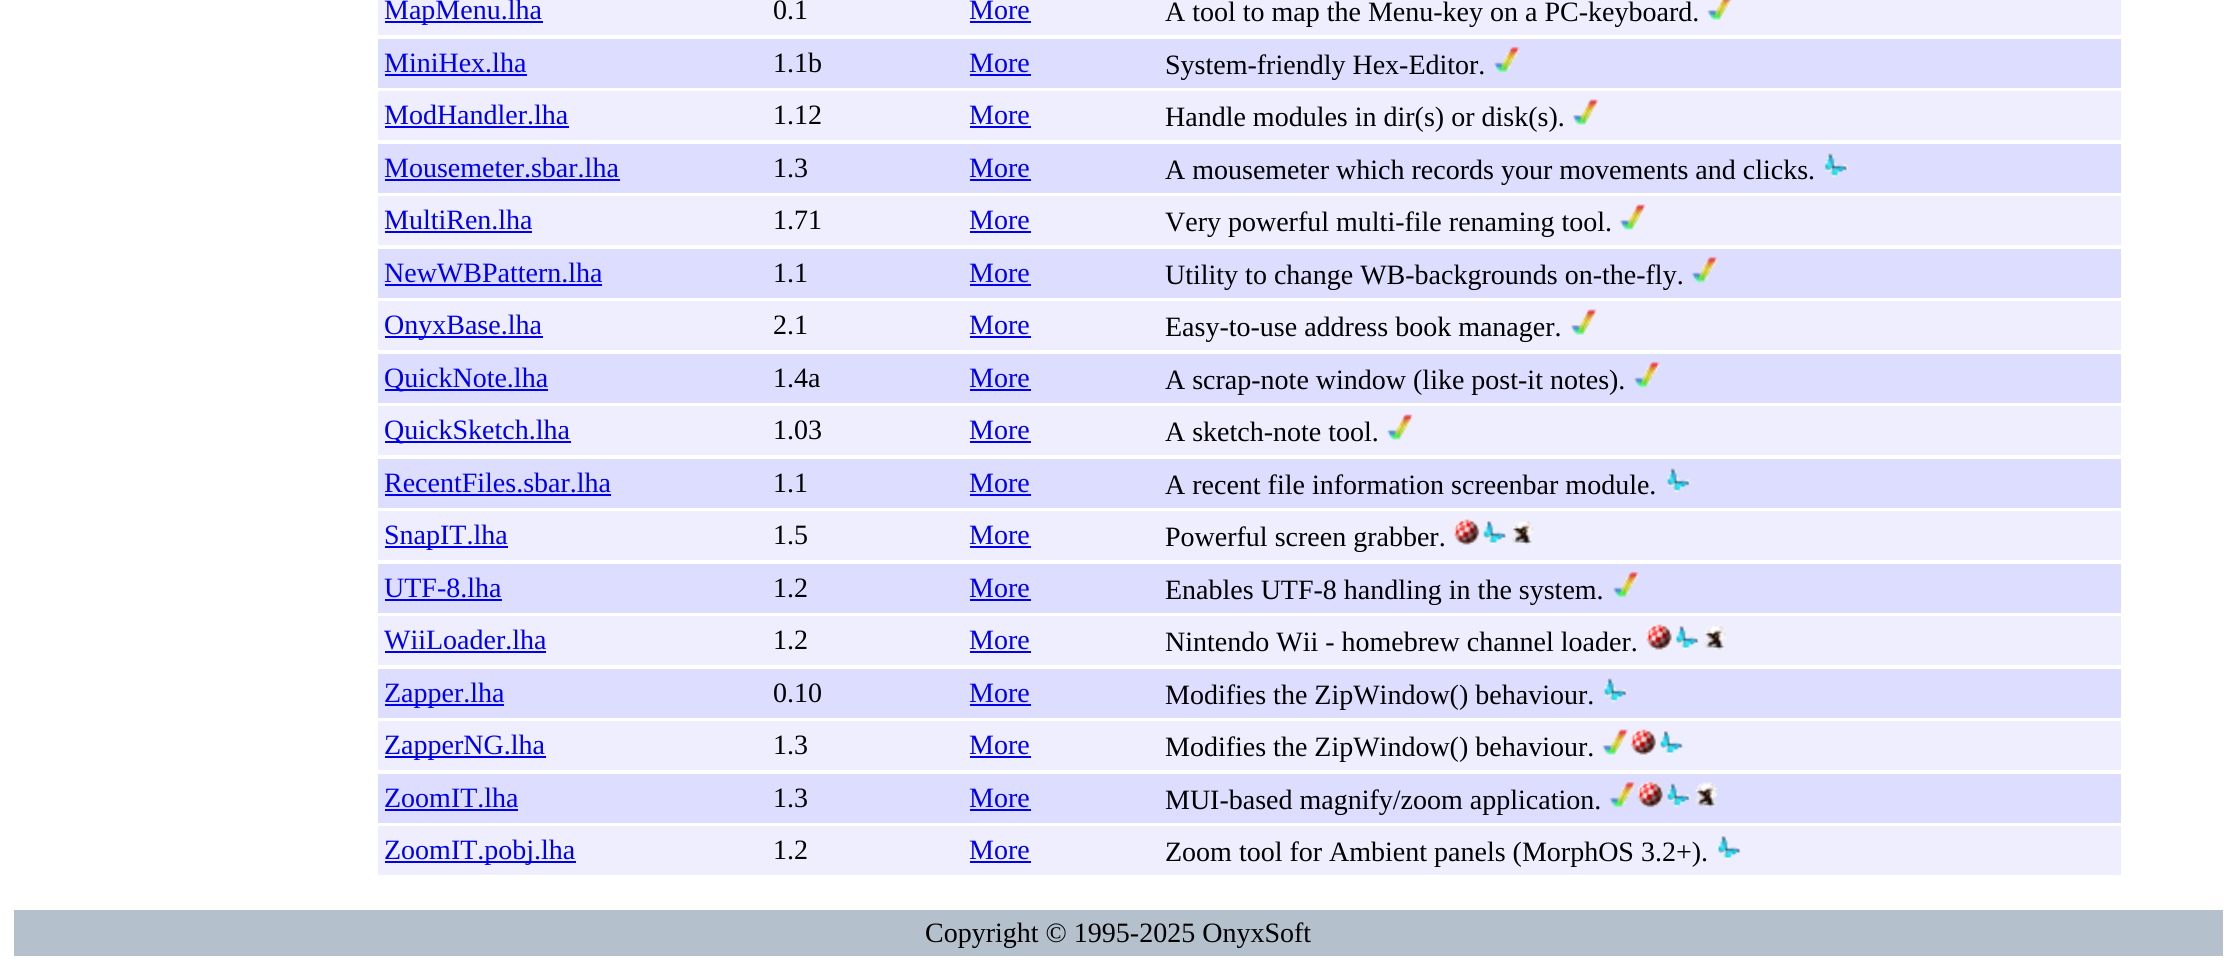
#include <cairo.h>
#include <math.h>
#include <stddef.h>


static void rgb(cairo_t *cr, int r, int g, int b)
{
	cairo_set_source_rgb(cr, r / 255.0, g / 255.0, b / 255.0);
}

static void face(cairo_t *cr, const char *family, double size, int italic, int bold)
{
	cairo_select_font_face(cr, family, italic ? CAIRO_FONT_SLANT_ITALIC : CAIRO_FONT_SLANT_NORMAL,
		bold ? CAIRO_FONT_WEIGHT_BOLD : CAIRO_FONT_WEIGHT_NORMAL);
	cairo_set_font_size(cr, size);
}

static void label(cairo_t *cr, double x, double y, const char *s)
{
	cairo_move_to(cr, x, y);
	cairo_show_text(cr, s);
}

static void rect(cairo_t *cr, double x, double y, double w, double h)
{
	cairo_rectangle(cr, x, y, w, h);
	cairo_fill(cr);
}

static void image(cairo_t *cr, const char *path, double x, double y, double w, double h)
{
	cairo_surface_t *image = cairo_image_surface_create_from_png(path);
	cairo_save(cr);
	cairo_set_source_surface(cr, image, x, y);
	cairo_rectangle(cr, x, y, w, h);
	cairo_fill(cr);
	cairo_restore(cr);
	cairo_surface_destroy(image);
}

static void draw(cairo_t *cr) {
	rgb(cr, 255, 255, 255);
	cairo_paint(cr);
	rgb(cr, 238, 238, 255);
	rect(cr, 378, 0, 1743, 35);
	rgb(cr, 0, 0, 238);
	rect(cr, 385, 21, 158, 2);
	face(cr, "Liberation Serif", 28, 0, 0);
	label(cr, 384, 19, "MapMenu.lha");
	rgb(cr, 0, 0, 0);
	label(cr, 773, 19, "0.1");
	rgb(cr, 0, 0, 238);
	label(cr, 969, 19, "More");
	rect(cr, 970, 21, 61, 2);
	rgb(cr, 0, 0, 0);
	label(cr, 1165, 21, "A tool to map the Menu-key on a PC-keyboard.");
	image(cr, "image0.png", 1707, 0, 25, 20);
	rgb(cr, 221, 221, 255);
	rect(cr, 378, 39, 1743, 49);
	rgb(cr, 0, 0, 238);
	label(cr, 384, 72, "MiniHex.lha");
	rect(cr, 385, 74, 142, 2);
	rgb(cr, 0, 0, 0);
	label(cr, 773, 72, "1.1b");
	rgb(cr, 0, 0, 238);
	label(cr, 969, 72, "More");
	rect(cr, 970, 74, 61, 2);
	rgb(cr, 0, 0, 0);
	label(cr, 1165, 74, "System-friendly Hex-Editor.");
	image(cr, "image1.png", 1494, 46, 26, 27);
	rgb(cr, 238, 238, 255);
	rect(cr, 378, 91, 1743, 49);
	rgb(cr, 0, 0, 238);
	label(cr, 384, 124, "ModHandler.lha");
	rect(cr, 385, 126, 184, 2);
	rgb(cr, 0, 0, 0);
	label(cr, 773, 124, "1.12");
	rgb(cr, 0, 0, 238);
	label(cr, 969, 124, "More");
	rect(cr, 970, 126, 61, 2);
	rgb(cr, 0, 0, 0);
	label(cr, 1165, 126, "Handle modules in dir(s) or disk(s).");
	image(cr, "image2.png", 1573, 99, 26, 26);
	rgb(cr, 221, 221, 255);
	rect(cr, 378, 144, 1743, 49);
	rgb(cr, 0, 0, 238);
	label(cr, 384, 177, "Mousemeter.sbar.lha");
	rect(cr, 385, 179, 235, 2);
	rgb(cr, 0, 0, 0);
	label(cr, 773, 177, "1.3");
	rgb(cr, 0, 0, 238);
	label(cr, 969, 177, "More");
	rect(cr, 970, 179, 61, 2);
	rgb(cr, 0, 0, 0);
	label(cr, 1165, 179, "A mousemeter which records your movements and clicks.");
	image(cr, "image3.png", 1824, 153, 25, 25);
	rgb(cr, 238, 238, 255);
	rect(cr, 378, 196, 1743, 49);
	rgb(cr, 0, 0, 238);
	label(cr, 384, 229, "MultiRen.lha");
	rect(cr, 385, 231, 147, 2);
	rgb(cr, 0, 0, 0);
	label(cr, 773, 229, "1.71");
	rgb(cr, 0, 0, 238);
	label(cr, 969, 229, "More");
	rect(cr, 970, 231, 61, 2);
	rgb(cr, 0, 0, 0);
	label(cr, 1165, 231, "Very powerful multi-file renaming tool.");
	image(cr, "image4.png", 1620, 204, 26, 26);
	rgb(cr, 221, 221, 255);
	rect(cr, 378, 249, 1743, 49);
	rgb(cr, 0, 0, 238);
	label(cr, 384, 282, "NewWBPattern.lha");
	rect(cr, 385, 284, 217, 2);
	rgb(cr, 0, 0, 0);
	label(cr, 773, 282, "1.1");
	rgb(cr, 0, 0, 238);
	label(cr, 969, 282, "More");
	rect(cr, 970, 284, 61, 2);
	rgb(cr, 0, 0, 0);
	label(cr, 1165, 284, "Utility to change WB-backgrounds on-the-fly.");
	image(cr, "image5.png", 1692, 256, 26, 27);
	rgb(cr, 238, 238, 255);
	rect(cr, 378, 301, 1743, 49);
	rgb(cr, 0, 0, 238);
	rect(cr, 385, 336, 158, 2);
	label(cr, 384, 334, "OnyxBase.lha");
	rgb(cr, 0, 0, 0);
	label(cr, 773, 334, "2.1");
	rgb(cr, 0, 0, 238);
	label(cr, 969, 334, "More");
	rect(cr, 970, 336, 61, 2);
	rgb(cr, 0, 0, 0);
	label(cr, 1165, 336, "Easy-to-use address book manager.");
	image(cr, "image6.png", 1571, 309, 26, 26);
	rgb(cr, 221, 221, 255);
	rect(cr, 378, 354, 1743, 49);
	rgb(cr, 0, 0, 238);
	rect(cr, 385, 389, 163, 2);
	label(cr, 384, 387, "QuickNote.lha");
	rgb(cr, 0, 0, 0);
	label(cr, 773, 387, "1.4a");
	rgb(cr, 0, 0, 238);
	label(cr, 969, 387, "More");
	rect(cr, 970, 389, 61, 2);
	rgb(cr, 0, 0, 0);
	label(cr, 1165, 389, "A scrap-note window (like post-it notes).");
	image(cr, "image7.png", 1634, 361, 26, 27);
	rgb(cr, 238, 238, 255);
	rect(cr, 378, 406, 1743, 49);
	rgb(cr, 0, 0, 238);
	rect(cr, 385, 441, 186, 2);
	label(cr, 384, 439, "QuickSketch.lha");
	rgb(cr, 0, 0, 0);
	label(cr, 773, 439, "1.03");
	rgb(cr, 0, 0, 238);
	label(cr, 969, 439, "More");
	rect(cr, 970, 441, 61, 2);
	rgb(cr, 0, 0, 0);
	label(cr, 1165, 441, "A sketch-note tool.");
	image(cr, "image8.png", 1387, 414, 26, 26);
	rgb(cr, 221, 221, 255);
	rect(cr, 378, 459, 1743, 49);
	rgb(cr, 0, 0, 238);
	label(cr, 384, 492, "RecentFiles.sbar.lha");
	rect(cr, 385, 494, 226, 2);
	rgb(cr, 0, 0, 0);
	label(cr, 773, 492, "1.1");
	rgb(cr, 0, 0, 238);
	label(cr, 969, 492, "More");
	rect(cr, 970, 494, 61, 2);
	rgb(cr, 0, 0, 0);
	label(cr, 1165, 494, "A recent file information screenbar module.");
	image(cr, "image9.png", 1667, 468, 24, 25);
	rgb(cr, 238, 238, 255);
	rect(cr, 378, 511, 1743, 49);
	rgb(cr, 0, 0, 238);
	rect(cr, 385, 546, 123, 2);
	label(cr, 384, 544, "SnapIT.lha");
	rgb(cr, 0, 0, 0);
	label(cr, 773, 544, "1.5");
	rgb(cr, 0, 0, 238);
	label(cr, 969, 544, "More");
	rect(cr, 970, 546, 61, 2);
	rgb(cr, 0, 0, 0);
	label(cr, 1165, 546, "Powerful screen grabber.");
	image(cr, "image10.png", 1453, 519, 27, 26);
	image(cr, "image11.png", 1483, 521, 24, 24);
	image(cr, "image12.png", 1511, 519, 23, 26);
	rgb(cr, 221, 221, 255);
	rect(cr, 378, 564, 1743, 49);
	rgb(cr, 0, 0, 238);
	label(cr, 384, 597, "UTF-8.lha");
	rect(cr, 385, 599, 117, 2);
	rgb(cr, 0, 0, 0);
	label(cr, 773, 597, "1.2");
	rgb(cr, 0, 0, 238);
	label(cr, 969, 597, "More");
	rect(cr, 970, 599, 61, 2);
	rgb(cr, 0, 0, 0);
	label(cr, 1165, 599, "Enables UTF-8 handling in the system.");
	image(cr, "image7.png", 1613, 571, 26, 27);
	rgb(cr, 238, 238, 255);
	rect(cr, 378, 616, 1743, 49);
	rgb(cr, 0, 0, 238);
	label(cr, 384, 649, "WiiLoader.lha");
	rect(cr, 385, 651, 161, 2);
	rgb(cr, 0, 0, 0);
	label(cr, 773, 649, "1.2");
	rgb(cr, 0, 0, 238);
	label(cr, 969, 649, "More");
	rect(cr, 970, 651, 61, 2);
	rgb(cr, 0, 0, 0);
	label(cr, 1165, 651, "Nintendo Wii - homebrew channel loader.");
	image(cr, "image13.png", 1646, 624, 26, 26);
	image(cr, "image14.png", 1676, 626, 24, 24);
	image(cr, "image15.png", 1704, 624, 22, 26);
	rgb(cr, 221, 221, 255);
	rect(cr, 378, 669, 1743, 49);
	rgb(cr, 0, 0, 238);
	rect(cr, 385, 704, 119, 2);
	label(cr, 384, 702, "Zapper.lha");
	rgb(cr, 0, 0, 0);
	label(cr, 773, 702, "0.10");
	rgb(cr, 0, 0, 238);
	label(cr, 969, 702, "More");
	rect(cr, 970, 704, 61, 2);
	rgb(cr, 0, 0, 0);
	label(cr, 1165, 704, "Modifies the ZipWindow() behaviour.");
	image(cr, "image16.png", 1604, 678, 24, 25);
	rgb(cr, 238, 238, 255);
	rect(cr, 378, 721, 1743, 49);
	rgb(cr, 0, 0, 238);
	rect(cr, 385, 756, 161, 2);
	label(cr, 384, 754, "ZapperNG.lha");
	rgb(cr, 0, 0, 0);
	label(cr, 773, 754, "1.3");
	rgb(cr, 0, 0, 238);
	label(cr, 969, 754, "More");
	rect(cr, 970, 756, 61, 2);
	rgb(cr, 0, 0, 0);
	label(cr, 1165, 756, "Modifies the ZipWindow() behaviour.");
	image(cr, "image17.png", 1602, 729, 26, 26);
	image(cr, "image18.png", 1630, 729, 26, 26);
	image(cr, "image19.png", 1660, 731, 24, 24);
	rgb(cr, 221, 221, 255);
	rect(cr, 378, 774, 1743, 49);
	rgb(cr, 0, 0, 238);
	label(cr, 384, 807, "ZoomIT.lha");
	rect(cr, 385, 809, 133, 2);
	rgb(cr, 0, 0, 0);
	label(cr, 773, 807, "1.3");
	rgb(cr, 0, 0, 238);
	label(cr, 969, 807, "More");
	rect(cr, 970, 809, 61, 2);
	rgb(cr, 0, 0, 0);
	label(cr, 1165, 809, "MUI-based magnify/zoom application.");
	image(cr, "image20.png", 1609, 781, 26, 27);
	image(cr, "image21.png", 1637, 781, 26, 27);
	image(cr, "image9.png", 1667, 783, 24, 25);
	image(cr, "image22.png", 1695, 782, 23, 26);
	rgb(cr, 238, 238, 255);
	rect(cr, 378, 826, 1743, 49);
	rgb(cr, 0, 0, 238);
	rect(cr, 385, 861, 191, 2);
	label(cr, 384, 859, "ZoomIT.pobj.lha");
	rgb(cr, 0, 0, 0);
	label(cr, 773, 859, "1.2");
	rgb(cr, 0, 0, 238);
	label(cr, 969, 859, "More");
	rect(cr, 970, 861, 61, 2);
	rgb(cr, 0, 0, 0);
	label(cr, 1165, 861, "Zoom tool for Ambient panels (MorphOS 3.2+).");
	image(cr, "image14.png", 1718, 836, 24, 24);
	rgb(cr, 180, 193, 205);
	rect(cr, 14, 910, 2209, 46);
	rgb(cr, 0, 0, 0);
	label(cr, 925, 942, "Copyright © 1995-2025 OnyxSoft");
}

int main(void) {
	cairo_surface_t *surface = cairo_image_surface_create(CAIRO_FORMAT_RGB24, 2236, 968);
	cairo_t *cr = cairo_create(surface);
	cairo_font_options_t *options = cairo_font_options_create();
	cairo_font_options_set_hint_metrics(options, CAIRO_HINT_METRICS_OFF);
	cairo_font_options_set_hint_style(options, CAIRO_HINT_STYLE_NONE);
	cairo_set_font_options(cr, options);
	cairo_set_miter_limit(cr, 4);
	draw(cr);
	cairo_surface_write_to_png(surface, "render.png");
	cairo_font_options_destroy(options);
	cairo_destroy(cr);
	cairo_surface_destroy(surface);
	return 0;
}
